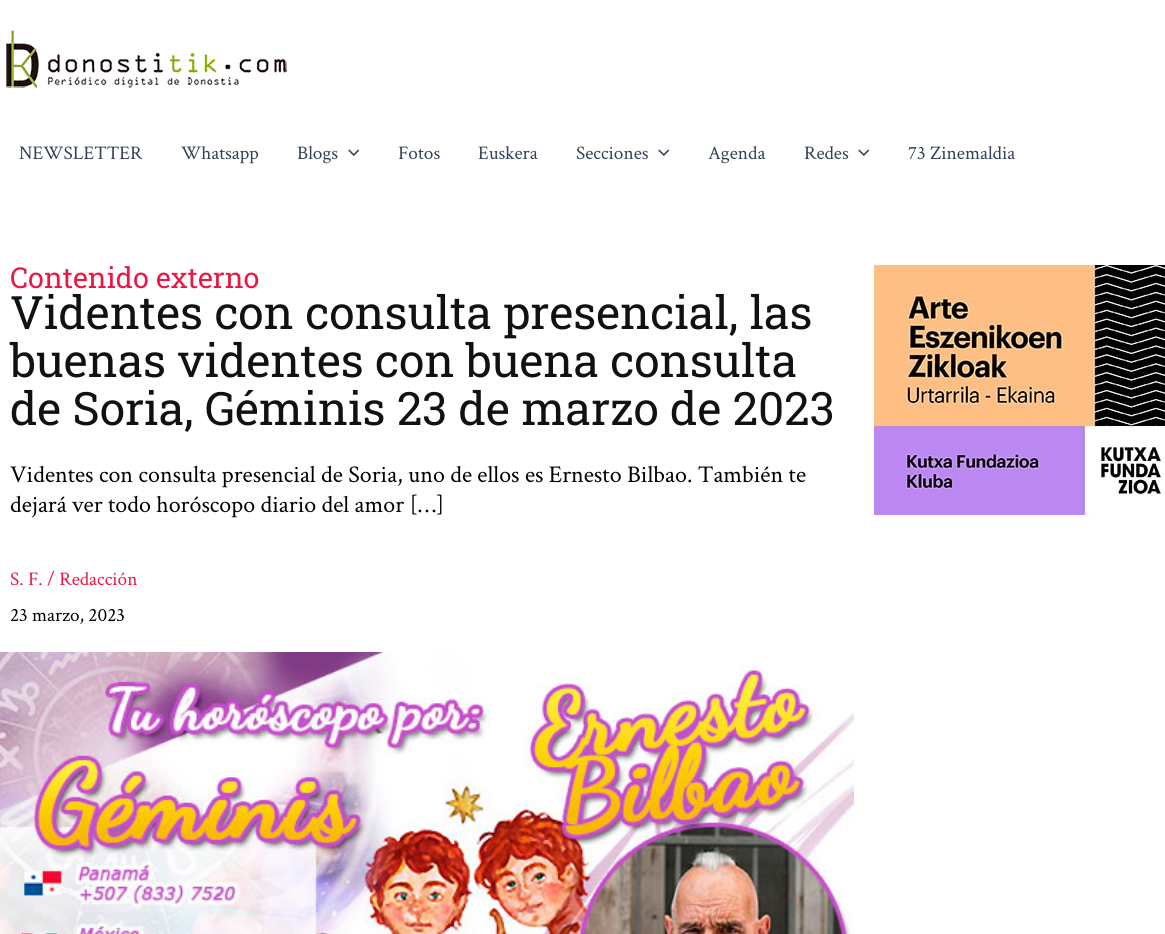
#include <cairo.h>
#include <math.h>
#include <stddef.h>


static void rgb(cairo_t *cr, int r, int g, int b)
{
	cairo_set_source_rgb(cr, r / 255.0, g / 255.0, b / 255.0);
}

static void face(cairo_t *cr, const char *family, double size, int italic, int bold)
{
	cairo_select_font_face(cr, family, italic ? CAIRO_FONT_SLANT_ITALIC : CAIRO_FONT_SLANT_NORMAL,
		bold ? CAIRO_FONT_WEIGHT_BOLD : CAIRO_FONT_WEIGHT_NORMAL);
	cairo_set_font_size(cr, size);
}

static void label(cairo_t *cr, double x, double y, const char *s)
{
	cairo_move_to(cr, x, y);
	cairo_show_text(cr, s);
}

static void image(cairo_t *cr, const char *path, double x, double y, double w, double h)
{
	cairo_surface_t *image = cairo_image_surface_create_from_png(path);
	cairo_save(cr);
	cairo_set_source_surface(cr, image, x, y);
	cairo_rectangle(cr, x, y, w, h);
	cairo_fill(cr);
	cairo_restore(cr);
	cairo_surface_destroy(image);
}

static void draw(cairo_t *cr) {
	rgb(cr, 255, 255, 255);
	cairo_paint(cr);
	image(cr, "image0.png", 6, 30, 281, 59);
	face(cr, "Crimson Text", 19.25, 0, 0);
	rgb(cr, 51, 65, 85);
	label(cr, 19, 159, "NEWSLETTER");
	label(cr, 181, 159, "Whatsapp");
	label(cr, 297, 159, "Blogs");
	image(cr, "image1.png", 348, 149, 11, 7);
	label(cr, 398, 159, "Fotos");
	label(cr, 478, 159, "Euskera");
	label(cr, 576, 159, "Secciones");
	image(cr, "image2.png", 658, 149, 12, 7);
	label(cr, 708, 159, "Agenda");
	label(cr, 804, 159, "Redes");
	image(cr, "image2.png", 858, 149, 12, 7);
	label(cr, 908, 159, "73 Zinemaldia");
	face(cr, "Roboto Slab", 28.75, 0, 0);
	rgb(cr, 233, 24, 69);
	label(cr, 10, 288, "Contenido externo");
	face(cr, "Roboto Slab", 46, 0, 0);
	rgb(cr, 17, 17, 17);
	label(cr, 10, 329, "Videntes con consulta presencial, las");
	label(cr, 10, 377, "buenas videntes con buena consulta");
	label(cr, 10, 425, "de Soria, Géminis 23 de marzo de 2023");
	face(cr, "Crimson Text", 24, 0, 0);
	rgb(cr, 0, 0, 0);
	label(cr, 10, 482, "Videntes con consulta presencial de Soria, uno de ellos es Ernesto Bilbao. También te");
	label(cr, 10, 512, "dejará ver todo horóscopo diario del amor […]");
	face(cr, "Crimson Text", 19.25, 0, 0);
	rgb(cr, 233, 24, 69);
	label(cr, 10, 585, "S. F. / Redacción");
	rgb(cr, 0, 0, 0);
	label(cr, 10, 621, "23 marzo, 2023");
	image(cr, "image3.png", 0, 652, 854, 282);
	image(cr, "image4.png", 874, 265, 291, 250);
}

int main(void) {
	cairo_surface_t *surface = cairo_image_surface_create(CAIRO_FORMAT_RGB24, 1165, 934);
	cairo_t *cr = cairo_create(surface);
	cairo_font_options_t *options = cairo_font_options_create();
	cairo_font_options_set_hint_metrics(options, CAIRO_HINT_METRICS_OFF);
	cairo_font_options_set_hint_style(options, CAIRO_HINT_STYLE_NONE);
	cairo_set_font_options(cr, options);
	cairo_set_miter_limit(cr, 4);
	draw(cr);
	cairo_surface_write_to_png(surface, "render.png");
	cairo_font_options_destroy(options);
	cairo_destroy(cr);
	cairo_surface_destroy(surface);
	return 0;
}
